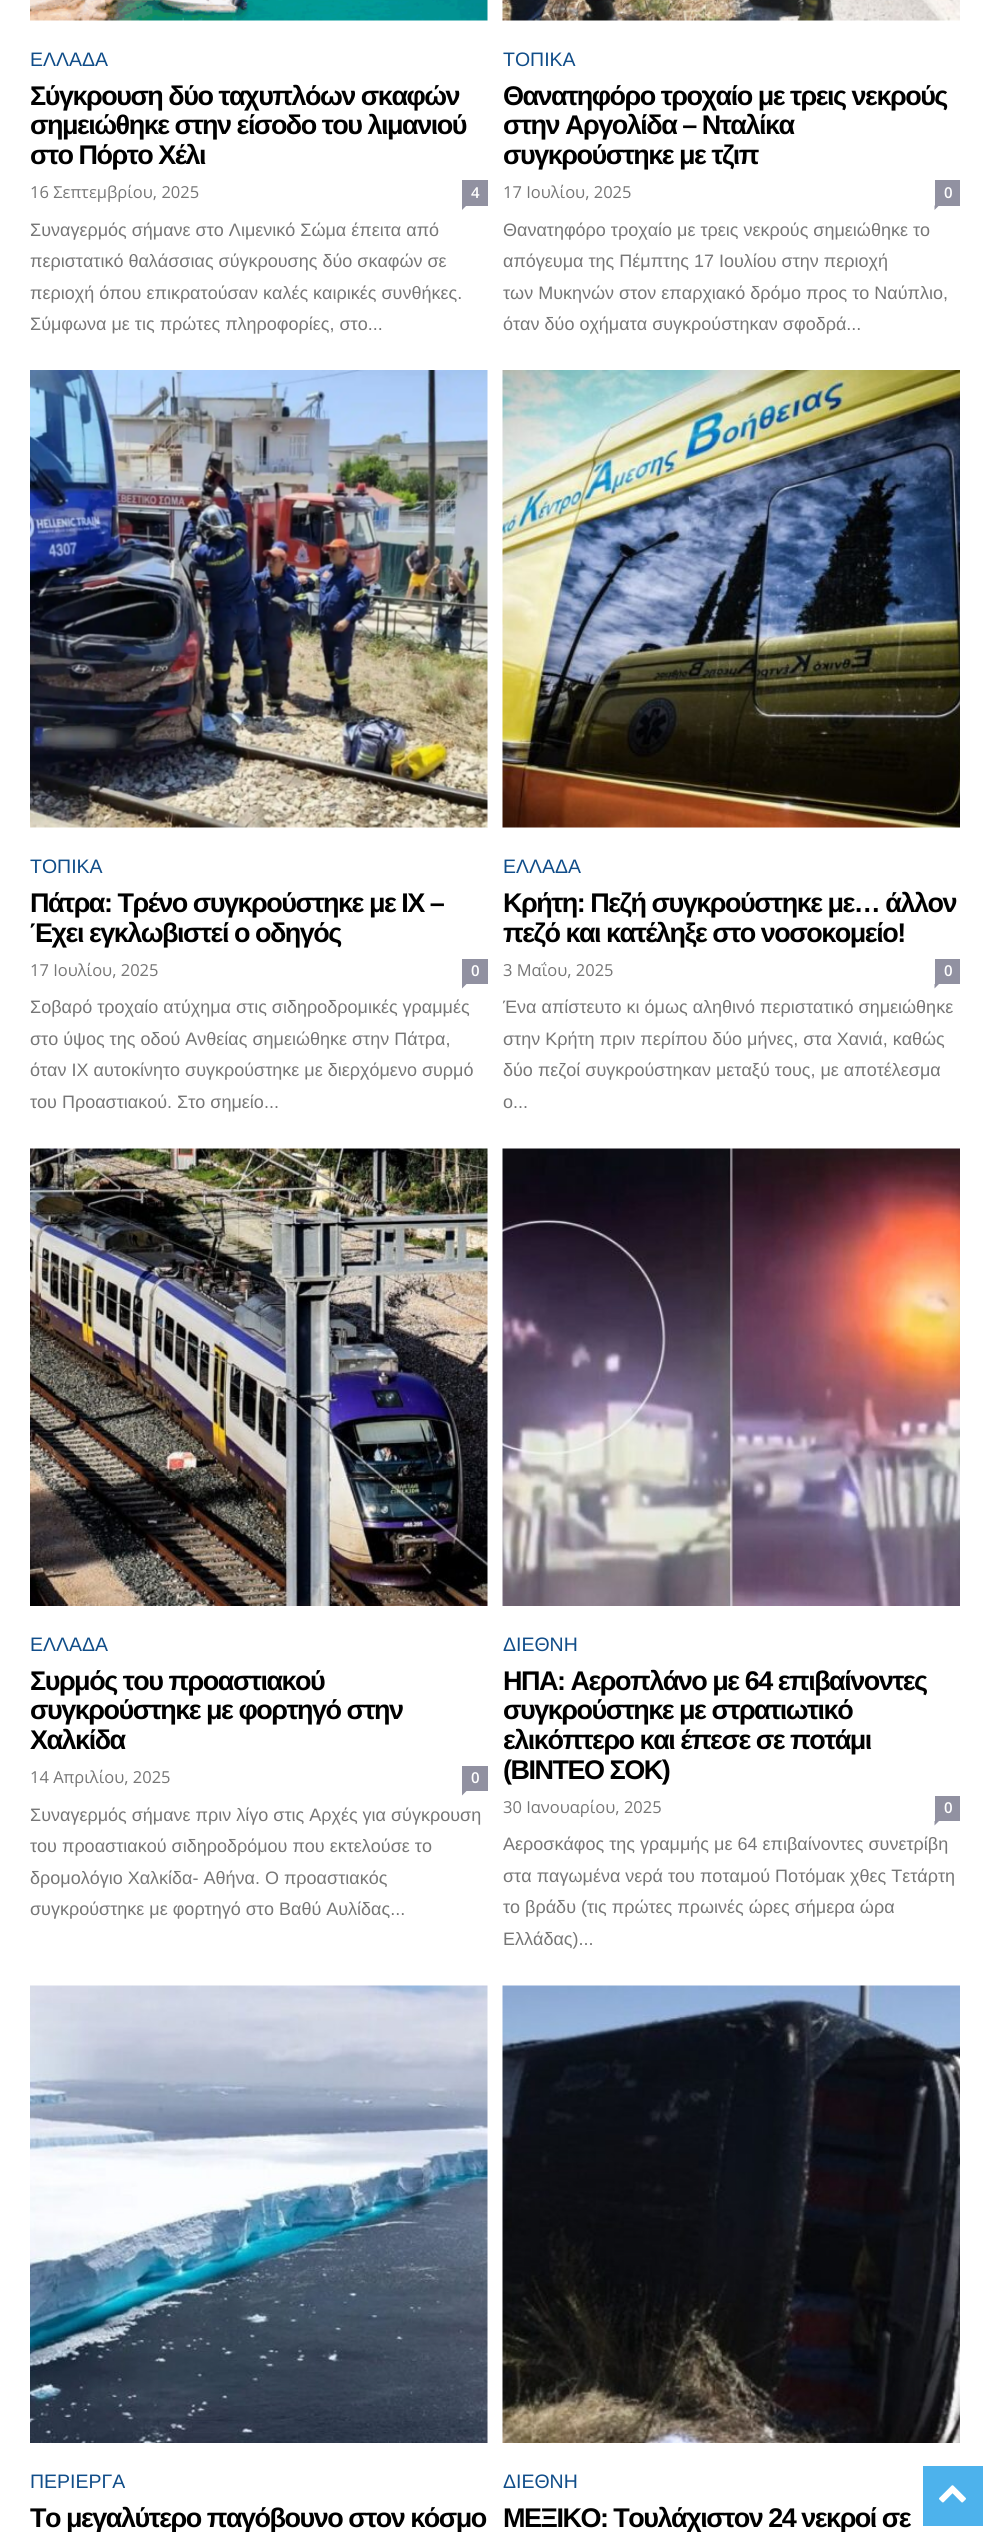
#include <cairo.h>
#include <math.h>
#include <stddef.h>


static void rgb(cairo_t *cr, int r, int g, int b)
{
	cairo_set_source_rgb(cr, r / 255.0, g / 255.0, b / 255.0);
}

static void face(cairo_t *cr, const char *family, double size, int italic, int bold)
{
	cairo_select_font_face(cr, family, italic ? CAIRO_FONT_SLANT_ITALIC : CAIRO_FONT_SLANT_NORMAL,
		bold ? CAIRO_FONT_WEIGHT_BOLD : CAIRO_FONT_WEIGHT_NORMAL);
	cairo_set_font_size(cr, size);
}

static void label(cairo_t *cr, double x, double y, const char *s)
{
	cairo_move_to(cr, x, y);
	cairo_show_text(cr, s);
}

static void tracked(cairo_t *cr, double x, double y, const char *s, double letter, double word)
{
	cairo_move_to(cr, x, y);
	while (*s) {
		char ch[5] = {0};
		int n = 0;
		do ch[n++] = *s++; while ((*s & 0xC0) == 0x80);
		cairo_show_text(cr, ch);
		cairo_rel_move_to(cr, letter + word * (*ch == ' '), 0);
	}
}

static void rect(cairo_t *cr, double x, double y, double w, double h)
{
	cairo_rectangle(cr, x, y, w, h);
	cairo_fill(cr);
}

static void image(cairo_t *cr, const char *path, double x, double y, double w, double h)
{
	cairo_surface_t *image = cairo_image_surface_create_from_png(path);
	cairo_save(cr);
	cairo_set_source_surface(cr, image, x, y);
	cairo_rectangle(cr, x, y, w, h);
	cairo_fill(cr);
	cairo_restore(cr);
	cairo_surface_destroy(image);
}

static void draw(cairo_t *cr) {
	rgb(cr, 255, 255, 255);
	cairo_paint(cr);
	image(cr, "image0.png", 30, 0, 458, 21);
	face(cr, "Liberation Sans", 19.5, 0, 0);
	rgb(cr, 16, 77, 137);
	label(cr, 30, 66, "ΕΛΛΑΔΑ");
	face(cr, "Liberation Sans", 27, 0, 1);
	rgb(cr, 0, 0, 0);
	tracked(cr, 30, 105, "Σύγκρουση δύο ταχυπλόων σκαφών", -1.5, 0);
	tracked(cr, 30, 134, "σημειώθηκε στην είσοδο του λιμανιού", -1.5, 0);
	tracked(cr, 30, 164, "στο Πόρτο Χέλι", -1.5, 0);
	face(cr, "Open Sans", 16.5, 0, 0);
	rgb(cr, 118, 118, 118);
	label(cr, 30, 198, "16 Σεπτεμβρίου, 2025");
	rgb(cr, 145, 145, 161);
	rect(cr, 462, 180, 26, 26);
	face(cr, "Open Sans SemiBold", 15, 0, 0);
	rgb(cr, 255, 255, 255);
	label(cr, 471, 198, "4");
	rgb(cr, 145, 145, 161);
	cairo_new_path(cr);
	cairo_move_to(cr, 462, 205.5);
	cairo_line_to(cr, 466.5, 205.5);
	cairo_line_to(cr, 462, 210);
	cairo_close_path(cr);
	cairo_fill(cr);
	face(cr, "Liberation Sans", 18, 0, 0);
	rgb(cr, 118, 118, 118);
	label(cr, 30, 236, "Συναγερμός σήμανε στο Λιμενικό Σώμα έπειτα από");
	label(cr, 30, 267, "περιστατικό θαλάσσιας σύγκρουσης δύο σκαφών σε");
	label(cr, 30, 299, "περιοχή όπου επικρατούσαν καλές καιρικές συνθήκες.");
	label(cr, 30, 330, "Σύμφωνα με τις πρώτες πληροφορίες, στο...");
	image(cr, "image1.png", 502, 0, 458, 21);
	face(cr, "Liberation Sans", 19.5, 0, 0);
	rgb(cr, 16, 77, 137);
	label(cr, 503, 66, "ΤΟΠΙΚΑ");
	face(cr, "Liberation Sans", 27, 0, 1);
	rgb(cr, 0, 0, 0);
	tracked(cr, 503, 105, "Θανατηφόρο τροχαίο με τρεις νεκρούς", -1.5, 0);
	tracked(cr, 503, 134, "στην Αργολίδα – Νταλίκα", -1.5, 0);
	tracked(cr, 503, 164, "συγκρούστηκε με τζιπ", -1.5, 0);
	face(cr, "Open Sans", 16.5, 0, 0);
	rgb(cr, 118, 118, 118);
	label(cr, 503, 198, "17 Ιουλίου, 2025");
	rgb(cr, 145, 145, 161);
	rect(cr, 935, 180, 25, 26);
	face(cr, "Open Sans SemiBold", 15, 0, 0);
	rgb(cr, 255, 255, 255);
	label(cr, 944, 198, "0");
	rgb(cr, 145, 145, 161);
	cairo_new_path(cr);
	cairo_move_to(cr, 934.5, 205.5);
	cairo_line_to(cr, 939, 205.5);
	cairo_line_to(cr, 934.5, 210);
	cairo_close_path(cr);
	cairo_fill(cr);
	face(cr, "Liberation Sans", 18, 0, 0);
	rgb(cr, 118, 118, 118);
	label(cr, 503, 236, "Θανατηφόρο τροχαίο με τρεις νεκρούς σημειώθηκε το");
	label(cr, 503, 267, "απόγευμα της Πέμπτης 17 Ιουλίου στην περιοχή");
	label(cr, 503, 299, "των Μυκηνών στον επαρχιακό δρόμο προς το Ναύπλιο,");
	label(cr, 503, 330, "όταν δύο οχήματα συγκρούστηκαν σφοδρά...");
	image(cr, "image2.png", 30, 370, 458, 458);
	face(cr, "Liberation Sans", 19.5, 0, 0);
	rgb(cr, 16, 77, 137);
	label(cr, 30, 873, "ΤΟΠΙΚΑ");
	face(cr, "Liberation Sans", 27, 0, 1);
	rgb(cr, 0, 0, 0);
	tracked(cr, 30, 912, "Πάτρα: Τρένο συγκρούστηκε με ΙΧ –", -1.5, 0);
	tracked(cr, 30, 942, "Έχει εγκλωβιστεί ο οδηγός", -1.5, 0);
	face(cr, "Open Sans", 16.5, 0, 0);
	rgb(cr, 118, 118, 118);
	label(cr, 30, 976, "17 Ιουλίου, 2025");
	rgb(cr, 145, 145, 161);
	rect(cr, 462, 959, 26, 25);
	face(cr, "Open Sans SemiBold", 15, 0, 0);
	rgb(cr, 255, 255, 255);
	label(cr, 471, 976, "0");
	rgb(cr, 145, 145, 161);
	cairo_new_path(cr);
	cairo_move_to(cr, 462, 984);
	cairo_line_to(cr, 466.5, 984);
	cairo_line_to(cr, 462, 988.5);
	cairo_close_path(cr);
	cairo_fill(cr);
	face(cr, "Liberation Sans", 18, 0, 0);
	rgb(cr, 118, 118, 118);
	label(cr, 30, 1013, "Σοβαρό τροχαίο ατύχημα στις σιδηροδρομικές γραμμές");
	label(cr, 30, 1045, "στο ύψος της οδού Ανθείας σημειώθηκε στην Πάτρα,");
	label(cr, 30, 1076, "όταν ΙΧ αυτοκίνητο συγκρούστηκε με διερχόμενο συρμό");
	label(cr, 30, 1108, "του Προαστιακού. Στο σημείο...");
	image(cr, "image3.png", 502, 370, 458, 458);
	face(cr, "Liberation Sans", 19.5, 0, 0);
	rgb(cr, 16, 77, 137);
	label(cr, 503, 873, "ΕΛΛΑΔΑ");
	face(cr, "Liberation Sans", 27, 0, 1);
	rgb(cr, 0, 0, 0);
	tracked(cr, 503, 912, "Κρήτη: Πεζή συγκρούστηκε με… άλλον", -1.5, 0);
	tracked(cr, 503, 942, "πεζό και κατέληξε στο νοσοκομείο!", -1.5, 0);
	face(cr, "Open Sans", 16.5, 0, 0);
	rgb(cr, 118, 118, 118);
	label(cr, 503, 976, "3 Μαΐου, 2025");
	rgb(cr, 145, 145, 161);
	rect(cr, 935, 959, 25, 25);
	face(cr, "Open Sans SemiBold", 15, 0, 0);
	rgb(cr, 255, 255, 255);
	label(cr, 944, 976, "0");
	rgb(cr, 145, 145, 161);
	cairo_new_path(cr);
	cairo_move_to(cr, 934.5, 984);
	cairo_line_to(cr, 939, 984);
	cairo_line_to(cr, 934.5, 988.5);
	cairo_close_path(cr);
	cairo_fill(cr);
	face(cr, "Liberation Sans", 18, 0, 0);
	rgb(cr, 118, 118, 118);
	label(cr, 503, 1013, "Ένα απίστευτο κι όμως αληθινό περιστατικό σημειώθηκε");
	label(cr, 503, 1045, "στην Κρήτη πριν περίπου δύο μήνες, στα Χανιά, καθώς");
	label(cr, 503, 1076, "δύο πεζοί συγκρούστηκαν μεταξύ τους, με αποτέλεσμα");
	label(cr, 503, 1108, "ο...");
	image(cr, "image4.png", 30, 1148, 458, 458);
	face(cr, "Liberation Sans", 19.5, 0, 0);
	rgb(cr, 16, 77, 137);
	label(cr, 30, 1651, "ΕΛΛΑΔΑ");
	face(cr, "Liberation Sans", 27, 0, 1);
	rgb(cr, 0, 0, 0);
	tracked(cr, 30, 1690, "Συρμός του προαστιακού", -1.5, 0);
	tracked(cr, 30, 1719, "συγκρούστηκε με φορτηγό στην", -1.5, 0);
	tracked(cr, 30, 1749, "Χαλκίδα", -1.5, 0);
	face(cr, "Open Sans", 16.5, 0, 0);
	rgb(cr, 118, 118, 118);
	label(cr, 30, 1783, "14 Απριλίου, 2025");
	rgb(cr, 145, 145, 161);
	rect(cr, 462, 1766, 26, 25);
	face(cr, "Open Sans SemiBold", 15, 0, 0);
	rgb(cr, 255, 255, 255);
	label(cr, 471, 1783, "0");
	rgb(cr, 145, 145, 161);
	cairo_new_path(cr);
	cairo_move_to(cr, 462, 1791);
	cairo_line_to(cr, 466.5, 1791);
	cairo_line_to(cr, 462, 1795.5);
	cairo_close_path(cr);
	cairo_fill(cr);
	face(cr, "Liberation Sans", 18, 0, 0);
	rgb(cr, 118, 118, 118);
	label(cr, 30, 1821, "Συναγερμός σήμανε πριν λίγο στις Αρχές για σύγκρουση");
	label(cr, 30, 1852, "του προαστιακού σιδηροδρόμου που εκτελούσε το");
	label(cr, 30, 1884, "δρομολόγιο Χαλκίδα- Αθήνα. Ο προαστιακός");
	label(cr, 30, 1915, "συγκρούστηκε με φορτηγό στο Βαθύ Αυλίδας...");
	image(cr, "image5.png", 502, 1148, 458, 458);
	face(cr, "Liberation Sans", 19.5, 0, 0);
	rgb(cr, 16, 77, 137);
	label(cr, 503, 1651, "ΔΙΕΘΝΗ");
	face(cr, "Liberation Sans", 27, 0, 1);
	rgb(cr, 0, 0, 0);
	tracked(cr, 503, 1690, "ΗΠΑ: Αεροπλάνο με 64 επιβαίνοντες", -1.5, 0);
	tracked(cr, 503, 1719, "συγκρούστηκε με στρατιωτικό", -1.5, 0);
	tracked(cr, 503, 1749, "ελικόπτερο και έπεσε σε ποτάμι", -1.5, 0);
	tracked(cr, 503, 1779, "(ΒΙΝΤΕΟ ΣΟΚ)", -1.5, 0);
	face(cr, "Open Sans", 16.5, 0, 0);
	rgb(cr, 118, 118, 118);
	label(cr, 503, 1813, "30 Ιανουαρίου, 2025");
	rgb(cr, 145, 145, 161);
	rect(cr, 935, 1796, 25, 25);
	face(cr, "Open Sans SemiBold", 15, 0, 0);
	rgb(cr, 255, 255, 255);
	label(cr, 944, 1813, "0");
	rgb(cr, 145, 145, 161);
	cairo_new_path(cr);
	cairo_move_to(cr, 934.5, 1821);
	cairo_line_to(cr, 939, 1821);
	cairo_line_to(cr, 934.5, 1825.5);
	cairo_close_path(cr);
	cairo_fill(cr);
	face(cr, "Liberation Sans", 18, 0, 0);
	rgb(cr, 118, 118, 118);
	label(cr, 503, 1850, "Αεροσκάφος της γραμμής με 64 επιβαίνοντες συνετρίβη");
	label(cr, 503, 1882, "στα παγωμένα νερά του ποταμού Ποτόμακ χθες Τετάρτη");
	label(cr, 503, 1913, "το βράδυ (τις πρώτες πρωινές ώρες σήμερα ώρα");
	label(cr, 503, 1945, "Ελλάδας)...");
	image(cr, "image6.png", 30, 1985, 458, 458);
	face(cr, "Liberation Sans", 19.5, 0, 0);
	rgb(cr, 16, 77, 137);
	label(cr, 30, 2488, "ΠΕΡΙΕΡΓΑ");
	face(cr, "Liberation Sans", 27, 0, 1);
	rgb(cr, 0, 0, 0);
	tracked(cr, 30, 2527, "Το μεγαλύτερο παγόβουνο στον κόσμο", -1.5, 0);
	image(cr, "image7.png", 502, 1985, 458, 458);
	face(cr, "Liberation Sans", 19.5, 0, 0);
	rgb(cr, 16, 77, 137);
	label(cr, 503, 2488, "ΔΙΕΘΝΗ");
	face(cr, "Liberation Sans", 27, 0, 1);
	rgb(cr, 0, 0, 0);
	tracked(cr, 503, 2527, "ΜΕΞΙΚΟ: Τουλάχιστον 24 νεκροί σε", -1.5, 0);
	rgb(cr, 77, 178, 236);
	rect(cr, 923, 2466, 60, 60);
	image(cr, "image8.png", 939, 2485, 27, 18);
}

int main(void) {
	cairo_surface_t *surface = cairo_image_surface_create(CAIRO_FORMAT_RGB24, 990, 2532);
	cairo_t *cr = cairo_create(surface);
	cairo_font_options_t *options = cairo_font_options_create();
	cairo_font_options_set_hint_metrics(options, CAIRO_HINT_METRICS_OFF);
	cairo_font_options_set_hint_style(options, CAIRO_HINT_STYLE_NONE);
	cairo_set_font_options(cr, options);
	cairo_set_miter_limit(cr, 4);
	draw(cr);
	cairo_surface_write_to_png(surface, "render.png");
	cairo_font_options_destroy(options);
	cairo_destroy(cr);
	cairo_surface_destroy(surface);
	return 0;
}
